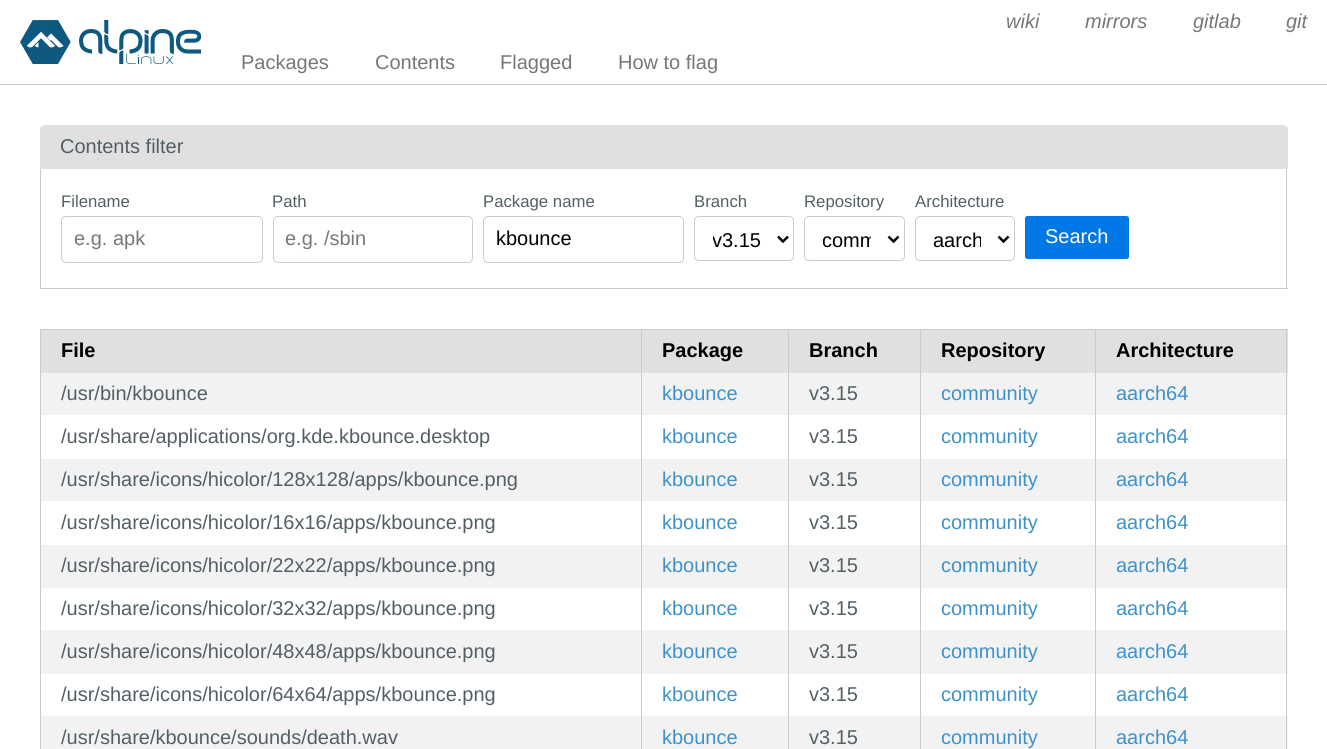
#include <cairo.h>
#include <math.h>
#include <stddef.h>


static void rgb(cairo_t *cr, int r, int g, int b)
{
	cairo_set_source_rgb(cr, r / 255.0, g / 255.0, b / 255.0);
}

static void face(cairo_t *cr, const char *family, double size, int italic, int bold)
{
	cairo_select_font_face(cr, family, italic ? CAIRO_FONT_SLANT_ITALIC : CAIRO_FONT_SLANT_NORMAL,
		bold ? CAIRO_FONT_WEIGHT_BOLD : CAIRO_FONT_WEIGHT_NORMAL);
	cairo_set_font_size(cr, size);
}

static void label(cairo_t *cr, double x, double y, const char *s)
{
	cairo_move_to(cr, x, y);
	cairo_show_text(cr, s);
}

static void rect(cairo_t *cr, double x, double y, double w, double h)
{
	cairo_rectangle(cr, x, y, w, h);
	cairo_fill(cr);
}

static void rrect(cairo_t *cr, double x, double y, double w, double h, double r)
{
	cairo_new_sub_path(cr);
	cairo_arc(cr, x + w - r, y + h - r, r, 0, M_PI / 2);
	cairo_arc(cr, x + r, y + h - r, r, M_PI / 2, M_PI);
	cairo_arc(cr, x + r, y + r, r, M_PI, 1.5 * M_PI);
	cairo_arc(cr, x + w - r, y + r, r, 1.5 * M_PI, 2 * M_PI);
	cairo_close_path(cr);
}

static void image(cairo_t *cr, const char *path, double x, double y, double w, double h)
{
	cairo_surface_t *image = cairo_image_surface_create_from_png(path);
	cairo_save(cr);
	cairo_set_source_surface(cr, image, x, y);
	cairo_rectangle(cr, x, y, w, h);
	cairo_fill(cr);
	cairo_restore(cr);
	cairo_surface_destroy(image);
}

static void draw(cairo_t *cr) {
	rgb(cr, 255, 255, 255);
	cairo_paint(cr);
	rgb(cr, 204, 204, 204);
	rect(cr, 0, 84, 1327, 1);
	image(cr, "image0.png", 20, 20, 181, 44);
	face(cr, "Liberation Sans", 20, 1, 0);
	rgb(cr, 119, 119, 119);
	label(cr, 1006, 28, "wiki");
	label(cr, 1085, 28, "mirrors");
	label(cr, 1193, 28, "gitlab");
	label(cr, 1286, 28, "git");
	face(cr, "Liberation Sans", 20, 0, 0);
	label(cr, 241, 69, "Packages");
	label(cr, 375, 69, "Contents");
	label(cr, 500, 69, "Flagged");
	label(cr, 618, 69, "How to flag");
	rgb(cr, 224, 224, 224);
	cairo_new_path(cr);
	cairo_move_to(cr, 45, 125);
	cairo_line_to(cr, 1283, 125);
	cairo_curve_to(cr, 1286, 125, 1288, 127, 1288, 130);
	cairo_line_to(cr, 1288, 169);
	cairo_line_to(cr, 40, 169);
	cairo_line_to(cr, 40, 130);
	cairo_curve_to(cr, 40, 127, 42, 125, 45, 125);
	cairo_close_path(cr);
	cairo_fill(cr);
	rgb(cr, 82, 96, 102);
	label(cr, 60, 153, "Contents filter");
	rgb(cr, 203, 203, 203);
	rect(cr, 1286, 169, 1, 120);
	rect(cr, 40, 288, 1248, 1);
	rect(cr, 40, 169, 1, 120);
	face(cr, "Liberation Sans", 16.75, 0, 0);
	rgb(cr, 82, 96, 102);
	label(cr, 61, 207, "Filename");
	rrect(cr, 61.5, 216.5, 201, 46, 4.5);
	rgb(cr, 204, 204, 204);
	cairo_set_line_width(cr, 1);
	cairo_stroke(cr);
	face(cr, "Liberation Sans", 20, 0, 0);
	rgb(cr, 119, 119, 119);
	label(cr, 74, 245, "e.g. apk");
	face(cr, "Liberation Sans", 16.75, 0, 0);
	rgb(cr, 82, 96, 102);
	label(cr, 272, 207, "Path");
	rrect(cr, 273.5, 216.5, 199, 46, 4.5);
	rgb(cr, 204, 204, 204);
	cairo_stroke(cr);
	face(cr, "Liberation Sans", 20, 0, 0);
	rgb(cr, 119, 119, 119);
	label(cr, 285, 245, "e.g. /sbin");
	face(cr, "Liberation Sans", 16.75, 0, 0);
	rgb(cr, 82, 96, 102);
	label(cr, 483, 207, "Package name");
	rrect(cr, 483.5, 216.5, 200, 46, 4.5);
	rgb(cr, 204, 204, 204);
	cairo_stroke(cr);
	face(cr, "Liberation Sans", 20, 0, 0);
	rgb(cr, 0, 0, 0);
	label(cr, 496, 245, "kbounce");
	face(cr, "Liberation Sans", 16.75, 0, 0);
	rgb(cr, 82, 96, 102);
	label(cr, 694, 207, "Branch");
	rrect(cr, 694.5, 216.5, 99, 44, 4.5);
	rgb(cr, 204, 204, 204);
	cairo_stroke(cr);
	cairo_new_path(cr);
	cairo_move_to(cr, 778, 236.5);
	cairo_line_to(cr, 783, 241.5);
	cairo_line_to(cr, 788, 236.5);
	rgb(cr, 0, 0, 0);
	cairo_set_line_width(cr, 2.5);
	cairo_stroke(cr);
	cairo_save(cr);
	cairo_rectangle(cr, 713, 228, 48, 23);
	cairo_clip(cr);
	face(cr, "Liberation Sans", 20, 0, 0);
	label(cr, 712, 247, "v3.15");
	cairo_restore(cr);
	rgb(cr, 82, 96, 102);
	label(cr, 804, 207, "Repository");
	rrect(cr, 804.5, 216.5, 100, 44, 4.5);
	rgb(cr, 204, 204, 204);
	cairo_set_line_width(cr, 1);
	cairo_stroke(cr);
	cairo_new_path(cr);
	cairo_move_to(cr, 888.5, 236.5);
	cairo_line_to(cr, 893.5, 241.5);
	cairo_line_to(cr, 898.5, 236.5);
	rgb(cr, 0, 0, 0);
	cairo_set_line_width(cr, 2.5);
	cairo_stroke(cr);
	cairo_save(cr);
	cairo_rectangle(cr, 823, 228, 48, 23);
	cairo_clip(cr);
	face(cr, "Liberation Sans", 20, 0, 0);
	label(cr, 822, 247, "comm");
	cairo_restore(cr);
	rgb(cr, 82, 96, 102);
	label(cr, 915, 207, "Architecture");
	rrect(cr, 915.5, 216.5, 99, 44, 4.5);
	rgb(cr, 204, 204, 204);
	cairo_set_line_width(cr, 1);
	cairo_stroke(cr);
	cairo_new_path(cr);
	cairo_move_to(cr, 998.5, 236.5);
	cairo_line_to(cr, 1003.5, 241.5);
	cairo_line_to(cr, 1008.5, 236.5);
	rgb(cr, 0, 0, 0);
	cairo_set_line_width(cr, 2.5);
	cairo_stroke(cr);
	cairo_save(cr);
	cairo_rectangle(cr, 933, 228, 48, 23);
	cairo_clip(cr);
	face(cr, "Liberation Sans", 20, 0, 0);
	label(cr, 933, 247, "aarch");
	cairo_restore(cr);
	rgb(cr, 0, 120, 231);
	rrect(cr, 1025, 216, 104, 43, 2.5);
	cairo_fill(cr);
	face(cr, "Liberation Sans", 20, 0, 0);
	rgb(cr, 255, 255, 255);
	label(cr, 1045, 243, "Search");
	rgb(cr, 203, 203, 203);
	rect(cr, 40, 329, 1248, 1);
	rgb(cr, 224, 224, 224);
	rect(cr, 41, 330, 1247, 43);
	rgb(cr, 242, 242, 242);
	rect(cr, 1096, 373, 192, 42);
	rect(cr, 1096, 459, 192, 42);
	rect(cr, 1096, 545, 192, 43);
	rect(cr, 1096, 630, 192, 44);
	rect(cr, 1096, 716, 192, 33);
	rgb(cr, 203, 203, 203);
	rect(cr, 1286, 329, 1, 420);
	rect(cr, 40, 329, 1, 420);
	face(cr, "Liberation Sans", 20, 0, 1);
	rgb(cr, 0, 0, 0);
	label(cr, 61, 357, "File");
	label(cr, 662, 357, "Package");
	label(cr, 809, 357, "Branch");
	label(cr, 941, 357, "Repository");
	label(cr, 1116, 357, "Architecture");
	rgb(cr, 242, 242, 242);
	rect(cr, 41, 373, 600, 42);
	face(cr, "Liberation Sans", 20, 0, 0);
	rgb(cr, 82, 96, 102);
	label(cr, 61, 400, "/usr/bin/kbounce");
	rgb(cr, 242, 242, 242);
	rect(cr, 642, 373, 146, 42);
	rgb(cr, 61, 146, 201);
	label(cr, 662, 400, "kbounce");
	rgb(cr, 242, 242, 242);
	rect(cr, 789, 373, 131, 42);
	rgb(cr, 82, 96, 102);
	label(cr, 809, 400, "v3.15");
	rgb(cr, 242, 242, 242);
	rect(cr, 921, 373, 174, 42);
	rgb(cr, 61, 146, 201);
	label(cr, 941, 400, "community");
	label(cr, 1116, 400, "aarch64");
	rgb(cr, 82, 96, 102);
	label(cr, 61, 443, "/usr/share/applications/org.kde.kbounce.desktop");
	rgb(cr, 61, 146, 201);
	label(cr, 662, 443, "kbounce");
	rgb(cr, 82, 96, 102);
	label(cr, 809, 443, "v3.15");
	rgb(cr, 61, 146, 201);
	label(cr, 941, 443, "community");
	label(cr, 1116, 443, "aarch64");
	rgb(cr, 242, 242, 242);
	rect(cr, 41, 459, 600, 42);
	rgb(cr, 82, 96, 102);
	label(cr, 61, 486, "/usr/share/icons/hicolor/128x128/apps/kbounce.png");
	rgb(cr, 242, 242, 242);
	rect(cr, 642, 459, 146, 42);
	rgb(cr, 61, 146, 201);
	label(cr, 662, 486, "kbounce");
	rgb(cr, 242, 242, 242);
	rect(cr, 789, 459, 131, 42);
	rgb(cr, 82, 96, 102);
	label(cr, 809, 486, "v3.15");
	rgb(cr, 242, 242, 242);
	rect(cr, 921, 459, 174, 42);
	rgb(cr, 61, 146, 201);
	label(cr, 941, 486, "community");
	label(cr, 1116, 486, "aarch64");
	rgb(cr, 82, 96, 102);
	label(cr, 61, 529, "/usr/share/icons/hicolor/16x16/apps/kbounce.png");
	rgb(cr, 61, 146, 201);
	label(cr, 662, 529, "kbounce");
	rgb(cr, 82, 96, 102);
	label(cr, 809, 529, "v3.15");
	rgb(cr, 61, 146, 201);
	label(cr, 941, 529, "community");
	label(cr, 1116, 529, "aarch64");
	rgb(cr, 242, 242, 242);
	rect(cr, 41, 545, 600, 43);
	rgb(cr, 82, 96, 102);
	label(cr, 61, 572, "/usr/share/icons/hicolor/22x22/apps/kbounce.png");
	rgb(cr, 242, 242, 242);
	rect(cr, 642, 545, 146, 43);
	rgb(cr, 61, 146, 201);
	label(cr, 662, 572, "kbounce");
	rgb(cr, 242, 242, 242);
	rect(cr, 789, 545, 131, 43);
	rgb(cr, 82, 96, 102);
	label(cr, 809, 572, "v3.15");
	rgb(cr, 242, 242, 242);
	rect(cr, 921, 545, 174, 43);
	rgb(cr, 61, 146, 201);
	label(cr, 941, 572, "community");
	label(cr, 1116, 572, "aarch64");
	rgb(cr, 82, 96, 102);
	label(cr, 61, 615, "/usr/share/icons/hicolor/32x32/apps/kbounce.png");
	rgb(cr, 61, 146, 201);
	label(cr, 662, 615, "kbounce");
	rgb(cr, 82, 96, 102);
	label(cr, 809, 615, "v3.15");
	rgb(cr, 61, 146, 201);
	label(cr, 941, 615, "community");
	label(cr, 1116, 615, "aarch64");
	rgb(cr, 242, 242, 242);
	rect(cr, 41, 630, 600, 44);
	rgb(cr, 82, 96, 102);
	label(cr, 61, 658, "/usr/share/icons/hicolor/48x48/apps/kbounce.png");
	rgb(cr, 242, 242, 242);
	rect(cr, 642, 630, 146, 44);
	rgb(cr, 61, 146, 201);
	label(cr, 662, 658, "kbounce");
	rgb(cr, 242, 242, 242);
	rect(cr, 789, 630, 131, 44);
	rgb(cr, 82, 96, 102);
	label(cr, 809, 658, "v3.15");
	rgb(cr, 242, 242, 242);
	rect(cr, 921, 630, 174, 44);
	rgb(cr, 61, 146, 201);
	label(cr, 941, 658, "community");
	label(cr, 1116, 658, "aarch64");
	rgb(cr, 82, 96, 102);
	label(cr, 61, 701, "/usr/share/icons/hicolor/64x64/apps/kbounce.png");
	rgb(cr, 61, 146, 201);
	label(cr, 662, 701, "kbounce");
	rgb(cr, 82, 96, 102);
	label(cr, 809, 701, "v3.15");
	rgb(cr, 61, 146, 201);
	label(cr, 941, 701, "community");
	label(cr, 1116, 701, "aarch64");
	rgb(cr, 242, 242, 242);
	rect(cr, 41, 716, 600, 33);
	rgb(cr, 82, 96, 102);
	label(cr, 61, 744, "/usr/share/kbounce/sounds/death.wav");
	rgb(cr, 242, 242, 242);
	rect(cr, 642, 716, 146, 33);
	rgb(cr, 203, 203, 203);
	rect(cr, 641, 329, 1, 420);
	rgb(cr, 61, 146, 201);
	label(cr, 662, 744, "kbounce");
	rgb(cr, 242, 242, 242);
	rect(cr, 789, 716, 131, 33);
	rgb(cr, 203, 203, 203);
	rect(cr, 788, 329, 1, 420);
	rgb(cr, 82, 96, 102);
	label(cr, 809, 744, "v3.15");
	rgb(cr, 242, 242, 242);
	rect(cr, 921, 716, 174, 33);
	rgb(cr, 203, 203, 203);
	rect(cr, 920, 329, 1, 420);
	rgb(cr, 61, 146, 201);
	label(cr, 941, 744, "community");
	rgb(cr, 203, 203, 203);
	rect(cr, 1095, 329, 1, 420);
	rgb(cr, 61, 146, 201);
	label(cr, 1116, 744, "aarch64");
}

int main(void) {
	cairo_surface_t *surface = cairo_image_surface_create(CAIRO_FORMAT_RGB24, 1327, 749);
	cairo_t *cr = cairo_create(surface);
	cairo_font_options_t *options = cairo_font_options_create();
	cairo_font_options_set_hint_metrics(options, CAIRO_HINT_METRICS_OFF);
	cairo_font_options_set_hint_style(options, CAIRO_HINT_STYLE_NONE);
	cairo_set_font_options(cr, options);
	cairo_set_miter_limit(cr, 4);
	draw(cr);
	cairo_surface_write_to_png(surface, "render.png");
	cairo_font_options_destroy(options);
	cairo_destroy(cr);
	cairo_surface_destroy(surface);
	return 0;
}
